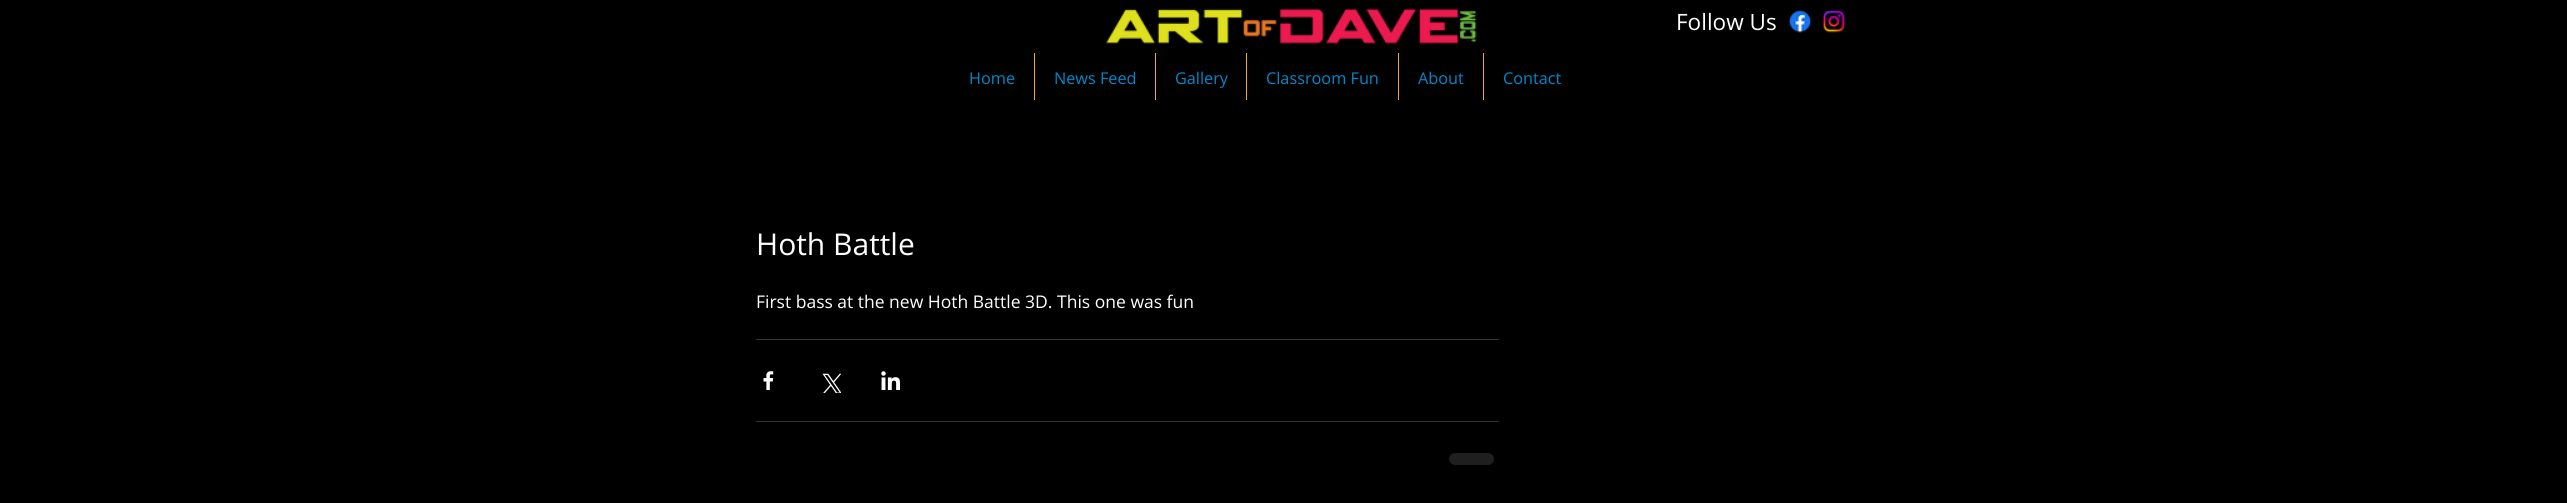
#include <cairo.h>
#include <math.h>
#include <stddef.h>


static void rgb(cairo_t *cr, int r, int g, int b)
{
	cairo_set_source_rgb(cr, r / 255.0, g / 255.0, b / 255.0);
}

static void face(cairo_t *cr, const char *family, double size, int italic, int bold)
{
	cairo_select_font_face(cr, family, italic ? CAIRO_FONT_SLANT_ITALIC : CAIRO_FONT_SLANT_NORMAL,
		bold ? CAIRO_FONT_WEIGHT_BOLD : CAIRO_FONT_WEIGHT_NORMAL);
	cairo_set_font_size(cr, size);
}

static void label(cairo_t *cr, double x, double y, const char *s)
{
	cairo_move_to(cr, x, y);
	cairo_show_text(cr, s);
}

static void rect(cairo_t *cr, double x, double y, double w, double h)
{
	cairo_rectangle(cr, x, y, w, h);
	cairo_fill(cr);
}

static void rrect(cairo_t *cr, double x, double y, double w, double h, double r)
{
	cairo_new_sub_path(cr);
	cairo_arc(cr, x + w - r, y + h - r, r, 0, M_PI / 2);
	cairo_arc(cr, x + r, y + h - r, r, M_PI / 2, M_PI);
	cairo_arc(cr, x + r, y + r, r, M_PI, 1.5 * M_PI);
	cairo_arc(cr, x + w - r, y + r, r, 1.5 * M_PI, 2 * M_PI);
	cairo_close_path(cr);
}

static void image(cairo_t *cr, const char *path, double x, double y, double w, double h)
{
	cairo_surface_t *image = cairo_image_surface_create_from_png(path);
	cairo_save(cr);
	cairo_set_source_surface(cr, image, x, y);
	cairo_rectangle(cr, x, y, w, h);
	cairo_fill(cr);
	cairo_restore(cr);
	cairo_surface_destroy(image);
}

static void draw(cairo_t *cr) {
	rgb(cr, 0, 0, 0);
	cairo_paint(cr);
	image(cr, "image0.png", 1106, 8, 371, 36);
	face(cr, "Open Sans", 22.5, 0, 0);
	rgb(cr, 255, 255, 255);
	label(cr, 1676, 30, "Follow Us");
	image(cr, "image1.png", 1788, 10, 24, 23);
	image(cr, "image2.png", 1822, 10, 24, 23);
	face(cr, "Open Sans", 16.25, 0, 0);
	rgb(cr, 0, 136, 203);
	label(cr, 969, 84, "Home");
	rgb(cr, 239, 174, 33);
	rect(cr, 1034, 53, 1, 50);
	rgb(cr, 0, 136, 203);
	label(cr, 1054, 84, "News Feed");
	rgb(cr, 239, 174, 33);
	rect(cr, 1155, 53, 1, 50);
	rgb(cr, 0, 136, 203);
	label(cr, 1175, 84, "Gallery");
	rgb(cr, 239, 174, 33);
	rect(cr, 1246, 53, 1, 50);
	rgb(cr, 0, 136, 203);
	label(cr, 1266, 84, "Classroom Fun");
	rgb(cr, 239, 174, 33);
	rect(cr, 1398, 53, 1, 50);
	rgb(cr, 0, 136, 203);
	label(cr, 1418, 84, "About");
	rgb(cr, 239, 174, 33);
	rect(cr, 1483, 53, 1, 50);
	rgb(cr, 0, 136, 203);
	label(cr, 1503, 84, "Contact");
	rgb(cr, 0, 0, 0);
	rect(cr, 1034, 100, 450, 3);
	face(cr, "Open Sans", 30, 0, 0);
	rgb(cr, 255, 255, 255);
	label(cr, 756, 255, "Hoth Battle");
	face(cr, "Open Sans", 17.5, 0, 0);
	label(cr, 756, 308, "First bass at the new Hoth Battle 3D. This one was fun");
	rgb(cr, 51, 51, 51);
	rect(cr, 756, 339, 743, 1);
	image(cr, "image3.png", 763, 371, 11, 19);
	image(cr, "image4.png", 822, 373, 19, 20);
	image(cr, "image5.png", 881, 371, 19, 19);
	rect(cr, 756, 421, 743, 1);
	rgb(cr, 31, 31, 31);
	rrect(cr, 1449, 453, 45, 12, 6);
	cairo_fill(cr);
}

int main(void) {
	cairo_surface_t *surface = cairo_image_surface_create(CAIRO_FORMAT_RGB24, 2567, 503);
	cairo_t *cr = cairo_create(surface);
	cairo_font_options_t *options = cairo_font_options_create();
	cairo_font_options_set_hint_metrics(options, CAIRO_HINT_METRICS_OFF);
	cairo_font_options_set_hint_style(options, CAIRO_HINT_STYLE_NONE);
	cairo_set_font_options(cr, options);
	cairo_set_miter_limit(cr, 4);
	draw(cr);
	cairo_surface_write_to_png(surface, "render.png");
	cairo_font_options_destroy(options);
	cairo_destroy(cr);
	cairo_surface_destroy(surface);
	return 0;
}
